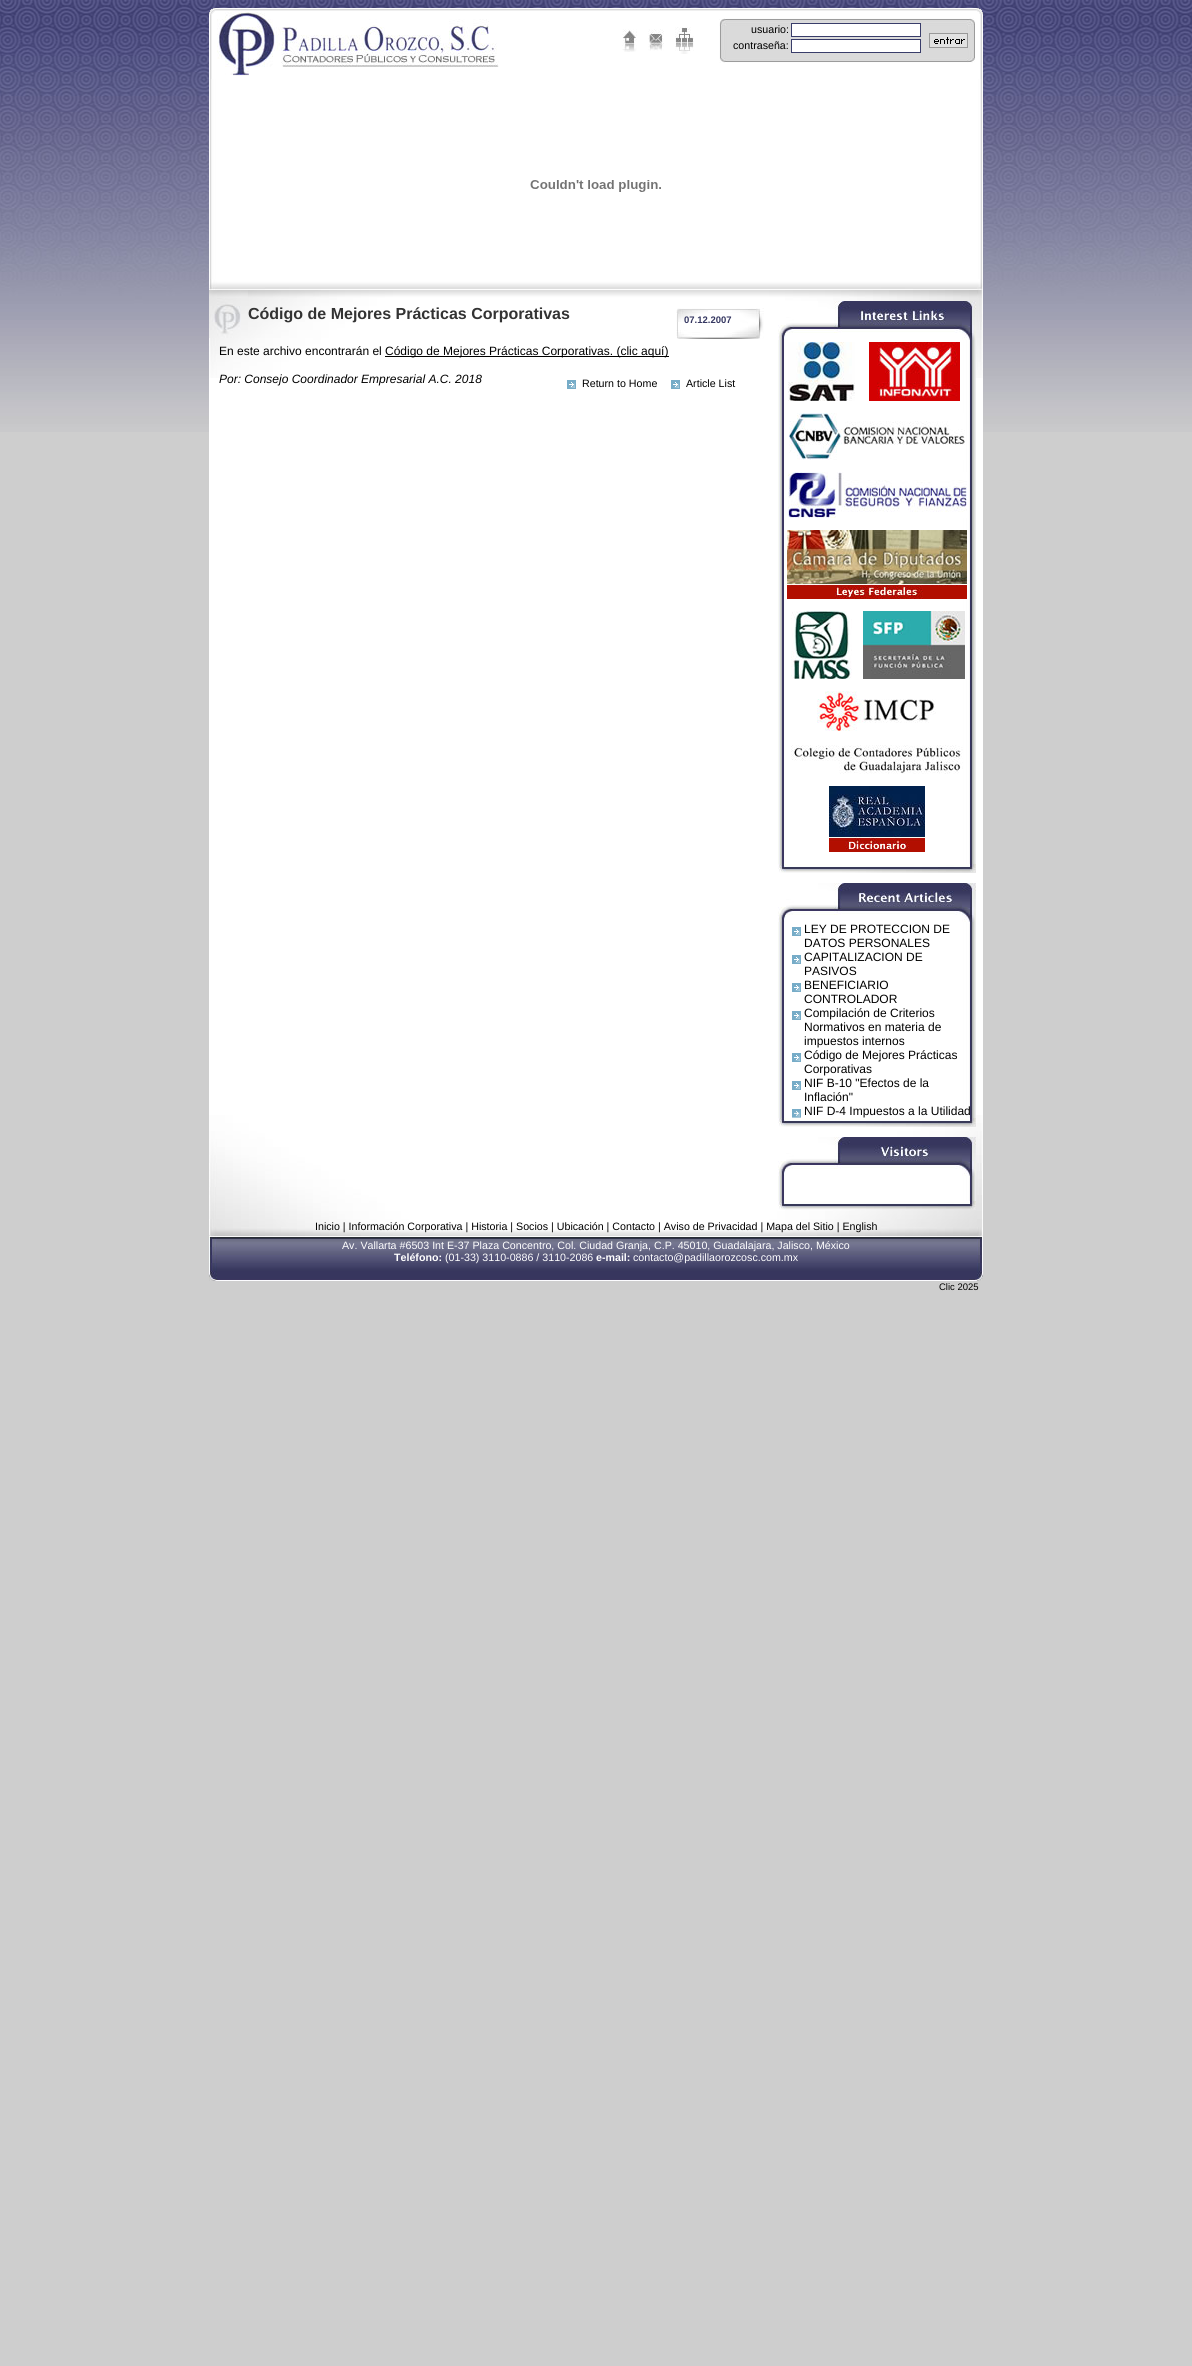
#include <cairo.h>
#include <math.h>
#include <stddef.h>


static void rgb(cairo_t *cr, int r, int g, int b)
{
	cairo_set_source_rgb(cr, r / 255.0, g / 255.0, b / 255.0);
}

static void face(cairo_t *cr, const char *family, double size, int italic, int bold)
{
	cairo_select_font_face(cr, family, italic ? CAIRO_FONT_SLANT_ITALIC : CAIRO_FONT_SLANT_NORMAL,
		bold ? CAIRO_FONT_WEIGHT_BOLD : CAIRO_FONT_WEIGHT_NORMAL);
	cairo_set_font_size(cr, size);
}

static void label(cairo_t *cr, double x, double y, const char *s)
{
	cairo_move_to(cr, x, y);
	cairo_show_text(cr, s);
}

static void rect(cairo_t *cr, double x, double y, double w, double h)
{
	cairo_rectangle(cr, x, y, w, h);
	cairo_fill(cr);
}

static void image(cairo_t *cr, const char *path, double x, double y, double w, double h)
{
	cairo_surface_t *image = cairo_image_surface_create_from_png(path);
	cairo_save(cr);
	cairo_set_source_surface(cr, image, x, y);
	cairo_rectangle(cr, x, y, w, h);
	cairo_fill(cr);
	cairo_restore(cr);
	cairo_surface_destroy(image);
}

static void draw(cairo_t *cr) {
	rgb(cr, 206, 206, 206);
	cairo_paint(cr);
	image(cr, "image0.png", 0, 0, 1192, 432);
	image(cr, "image1.png", 209, 8, 774, 71);
	image(cr, "image2.png", 217, 11, 282, 65);
	image(cr, "image3.png", 622, 29, 15, 23);
	image(cr, "image4.png", 648, 29, 16, 22);
	image(cr, "image5.png", 675, 27, 19, 27);
	image(cr, "image6.png", 719, 18, 256, 45);
	face(cr, "Liberation Sans", 10.67, 0, 0);
	rgb(cr, 0, 0, 0);
	label(cr, 751, 33, "usuario:");
	rgb(cr, 255, 255, 255);
	cairo_rectangle(cr, 791.5, 23.5, 129, 13);
	cairo_fill_preserve(cr);
	rgb(cr, 57, 61, 106);
	cairo_set_line_width(cr, 1);
	cairo_stroke(cr);
	rgb(cr, 0, 0, 0);
	label(cr, 733, 49, "contraseña:");
	rgb(cr, 255, 255, 255);
	cairo_rectangle(cr, 791.5, 39.5, 129, 13);
	cairo_fill_preserve(cr);
	rgb(cr, 57, 61, 106);
	cairo_stroke(cr);
	image(cr, "image7.png", 929, 33, 39, 15);
	image(cr, "image8.png", 209, 79, 774, 211);
	image(cr, "image9.png", 530, 180, 131, 12);
	rgb(cr, 255, 255, 255);
	rect(cr, 209, 378, 774, 737);
	image(cr, "image10.png", 209, 290, 774, 88);
	image(cr, "image11.png", 209, 1115, 774, 122);
	image(cr, "image12.png", 209, 290, 39, 48);
	face(cr, "Liberation Sans", 16, 0, 1);
	rgb(cr, 51, 51, 51);
	label(cr, 248, 319, "Código de Mejores Prácticas Corporativas");
	image(cr, "image13.png", 676, 308, 88, 31);
	face(cr, "Liberation Sans", 9.5, 0, 1);
	rgb(cr, 53, 55, 97);
	label(cr, 684, 323, "07.12.2007");
	face(cr, "Liberation Sans", 12, 0, 0);
	rgb(cr, 0, 0, 0);
	label(cr, 219, 355, "En este archivo encontrarán el");
	rect(cr, 385, 356, 284, 1);
	label(cr, 385, 355, "Código de Mejores Prácticas Corporativas. (clic aquí)");
	face(cr, "Liberation Sans", 12, 1, 0);
	label(cr, 219, 383, "Por: Consejo Coordinador Empresarial A.C. 2018");
	image(cr, "image14.png", 567, 380, 9, 9);
	face(cr, "Liberation Sans", 10.67, 0, 0);
	label(cr, 582, 387, "Return to Home");
	image(cr, "image14.png", 671, 380, 9, 9);
	label(cr, 686, 387, "Article List");
	image(cr, "image15.png", 778, 340, 198, 524);
	image(cr, "image16.png", 778, 301, 198, 39);
	image(cr, "image17.png", 788, 342, 67, 59);
	image(cr, "image18.png", 869, 342, 91, 59);
	image(cr, "image19.png", 789, 413, 176, 47);
	image(cr, "image20.png", 788, 472, 179, 46);
	image(cr, "image21.png", 787, 530, 180, 69);
	image(cr, "image22.png", 791, 611, 61, 68);
	image(cr, "image23.png", 863, 611, 102, 68);
	image(cr, "image24.png", 817, 691, 119, 40);
	image(cr, "image25.png", 791, 745, 172, 29);
	image(cr, "image26.png", 829, 786, 96, 66);
	image(cr, "image27.png", 778, 864, 198, 9);
	image(cr, "image28.png", 778, 922, 198, 196);
	image(cr, "image29.png", 778, 883, 198, 39);
	image(cr, "image14.png", 792, 927, 9, 9);
	face(cr, "Liberation Sans", 12, 0, 0);
	label(cr, 804, 933, "LEY DE PROTECCION DE");
	label(cr, 804, 947, "DATOS PERSONALES");
	image(cr, "image14.png", 792, 955, 9, 9);
	label(cr, 804, 961, "CAPITALIZACION DE");
	label(cr, 804, 975, "PASIVOS");
	image(cr, "image14.png", 792, 983, 9, 9);
	label(cr, 804, 989, "BENEFICIARIO");
	label(cr, 804, 1003, "CONTROLADOR");
	image(cr, "image14.png", 792, 1011, 9, 9);
	label(cr, 804, 1017, "Compilación de Criterios");
	label(cr, 804, 1031, "Normativos en materia de");
	label(cr, 804, 1045, "impuestos internos");
	image(cr, "image14.png", 792, 1053, 9, 9);
	label(cr, 804, 1059, "Código de Mejores Prácticas");
	label(cr, 804, 1073, "Corporativas");
	image(cr, "image14.png", 792, 1081, 9, 9);
	label(cr, 804, 1087, "NIF B-10 \"Efectos de la");
	label(cr, 804, 1101, "Inflación\"");
	image(cr, "image30.png", 792, 1109, 9, 9);
	label(cr, 804, 1115, "NIF D-4 Impuestos a la Utilidad");
	image(cr, "image27.png", 778, 1118, 198, 9);
	image(cr, "image31.png", 778, 1176, 198, 25);
	image(cr, "image32.png", 778, 1137, 198, 39);
	image(cr, "image27.png", 778, 1201, 198, 9);
	face(cr, "Liberation Sans", 10.67, 0, 0);
	label(cr, 315, 1230, "Inicio | Información Corporativa | Historia | Socios | Ubicación | Contacto | Aviso de Privacidad | Mapa del Sitio | English");
	image(cr, "image33.png", 209, 1237, 774, 2);
	image(cr, "image34.png", 209, 1239, 774, 42);
	rgb(cr, 255, 255, 255);
	label(cr, 342, 1249, "Av. Vallarta #6503 Int E-37 Plaza Concentro, Col. Ciudad Granja, C.P. 45010, Guadalajara, Jalisco, México");
	face(cr, "Liberation Sans", 10.67, 0, 1);
	label(cr, 394, 1261, "Teléfono:");
	face(cr, "Liberation Sans", 10.67, 0, 0);
	label(cr, 445, 1261, "(01-33) 3110-0886 / 3110-2086");
	face(cr, "Liberation Sans", 10.67, 0, 1);
	label(cr, 596, 1261, "e-mail:");
	face(cr, "Liberation Sans", 10.67, 0, 0);
	label(cr, 633, 1261, "contacto@padillaorozcosc.com.mx");
	face(cr, "Liberation Sans", 9.5, 0, 0);
	rgb(cr, 0, 0, 0);
	label(cr, 939, 1290, "Clic 2025");
}

int main(void) {
	cairo_surface_t *surface = cairo_image_surface_create(CAIRO_FORMAT_RGB24, 1192, 2366);
	cairo_t *cr = cairo_create(surface);
	cairo_font_options_t *options = cairo_font_options_create();
	cairo_font_options_set_hint_metrics(options, CAIRO_HINT_METRICS_OFF);
	cairo_font_options_set_hint_style(options, CAIRO_HINT_STYLE_NONE);
	cairo_set_font_options(cr, options);
	cairo_set_miter_limit(cr, 4);
	draw(cr);
	cairo_surface_write_to_png(surface, "render.png");
	cairo_font_options_destroy(options);
	cairo_destroy(cr);
	cairo_surface_destroy(surface);
	return 0;
}
